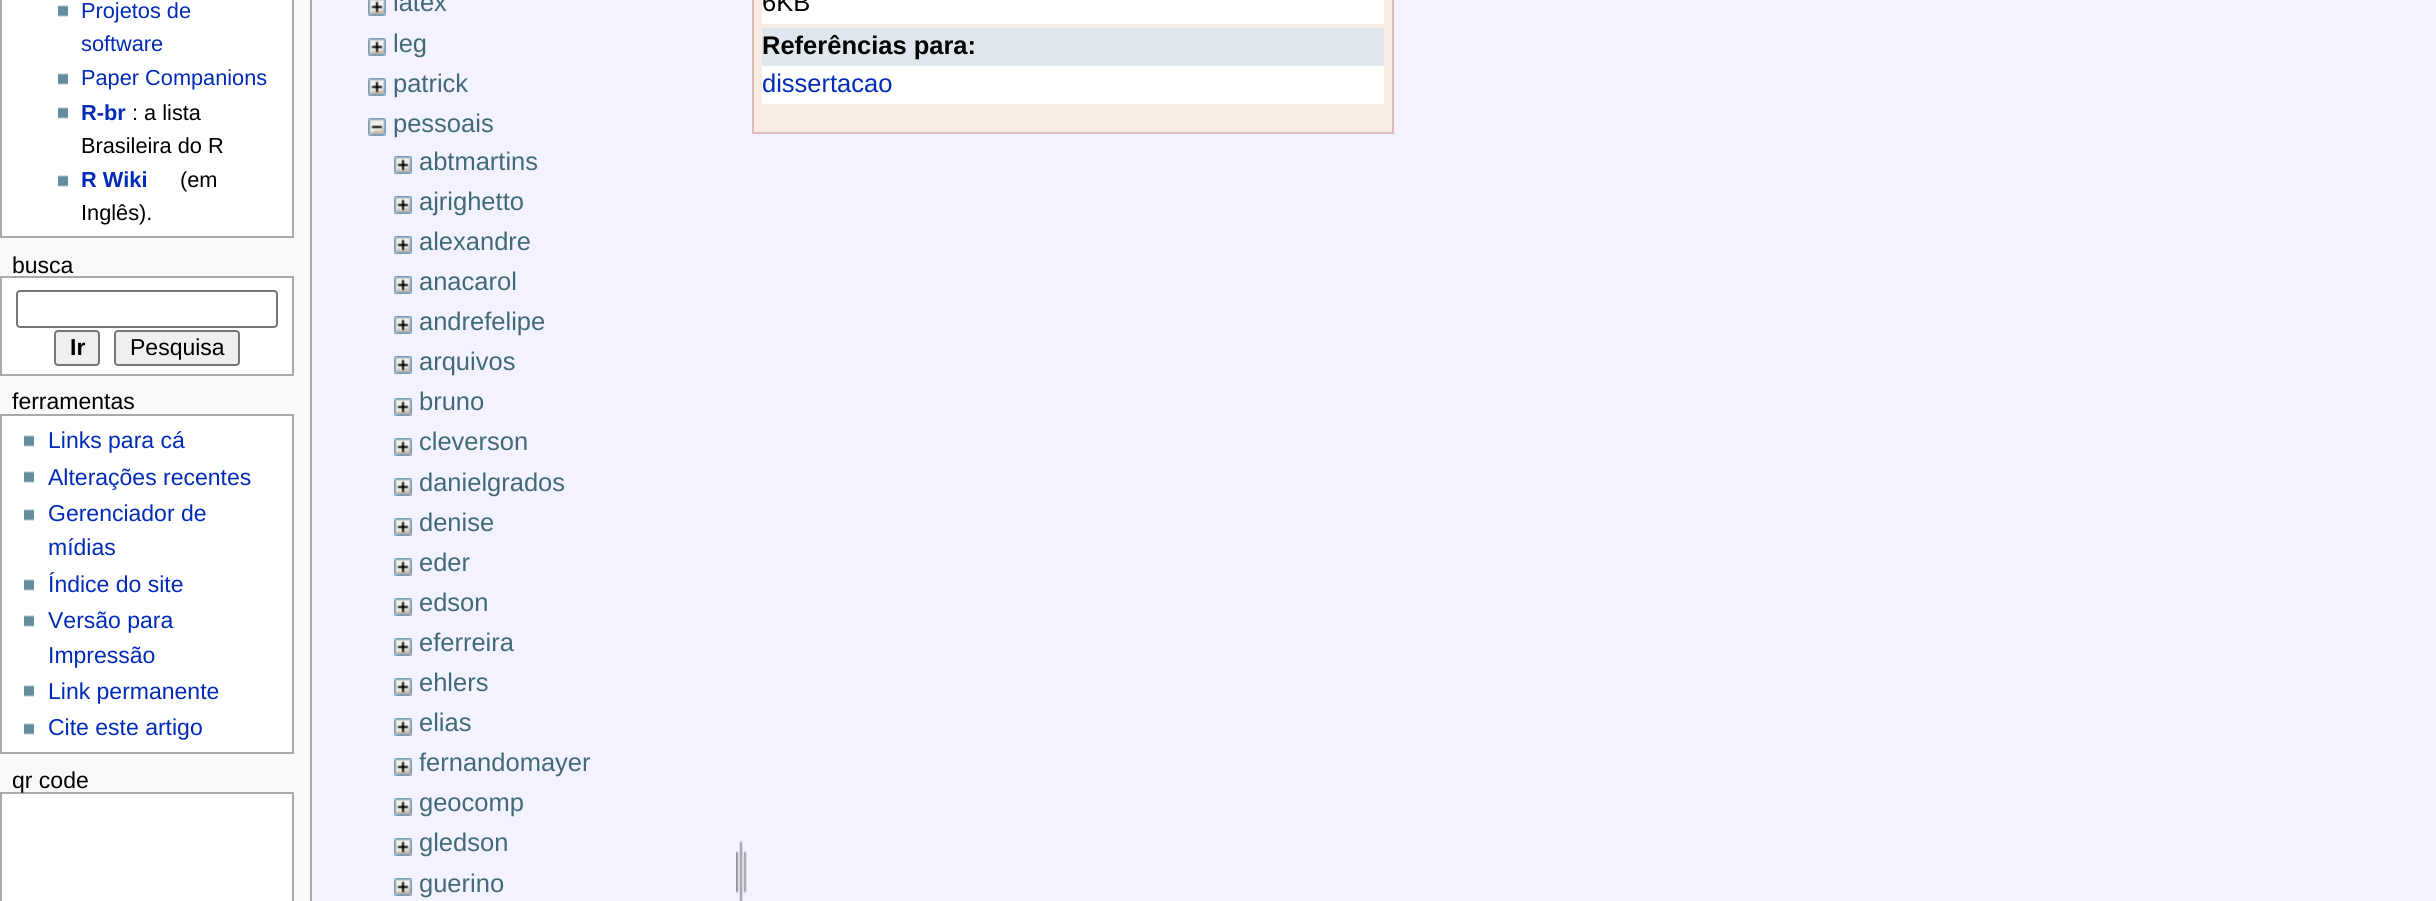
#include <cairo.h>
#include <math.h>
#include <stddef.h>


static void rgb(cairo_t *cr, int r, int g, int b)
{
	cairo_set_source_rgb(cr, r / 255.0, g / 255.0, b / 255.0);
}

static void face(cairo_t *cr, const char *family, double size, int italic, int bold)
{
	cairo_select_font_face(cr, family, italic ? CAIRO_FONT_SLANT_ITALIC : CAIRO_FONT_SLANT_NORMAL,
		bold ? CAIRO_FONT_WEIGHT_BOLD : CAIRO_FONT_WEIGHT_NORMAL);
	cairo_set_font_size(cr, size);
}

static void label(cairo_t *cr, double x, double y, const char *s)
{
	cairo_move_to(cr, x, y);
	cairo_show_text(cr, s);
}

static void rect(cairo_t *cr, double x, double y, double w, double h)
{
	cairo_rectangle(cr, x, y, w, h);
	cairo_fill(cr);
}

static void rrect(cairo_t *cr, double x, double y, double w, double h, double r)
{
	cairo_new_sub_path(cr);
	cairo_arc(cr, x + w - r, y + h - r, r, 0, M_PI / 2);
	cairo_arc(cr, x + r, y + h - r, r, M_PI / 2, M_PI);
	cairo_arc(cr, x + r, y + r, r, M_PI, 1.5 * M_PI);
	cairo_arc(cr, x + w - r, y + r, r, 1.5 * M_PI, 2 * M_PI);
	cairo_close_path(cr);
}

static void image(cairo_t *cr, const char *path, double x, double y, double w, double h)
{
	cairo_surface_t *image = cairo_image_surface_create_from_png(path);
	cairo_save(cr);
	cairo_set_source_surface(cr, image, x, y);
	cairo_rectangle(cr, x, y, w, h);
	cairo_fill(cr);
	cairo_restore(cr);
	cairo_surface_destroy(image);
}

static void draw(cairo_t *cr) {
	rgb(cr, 249, 249, 249);
	cairo_paint(cr);
	rgb(cr, 255, 255, 255);
	cairo_rectangle(cr, 1, -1, 292, 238);
	cairo_fill_preserve(cr);
	rgb(cr, 170, 170, 170);
	cairo_stroke(cr);
	image(cr, "image0.png", 58, 5, 10, 12);
	face(cr, "Liberation Sans", 21.75, 0, 0);
	rgb(cr, 0, 43, 184);
	label(cr, 81, 18, "Projetos de");
	label(cr, 81, 51, "software");
	image(cr, "image0.png", 58, 73, 10, 12);
	label(cr, 81, 85, "Paper Companions");
	image(cr, "image0.png", 58, 107, 10, 12);
	face(cr, "Liberation Sans", 21.75, 0, 1);
	label(cr, 81, 120, "R-br");
	face(cr, "Liberation Sans", 21.75, 0, 0);
	rgb(cr, 0, 0, 0);
	label(cr, 132, 120, ": a lista");
	label(cr, 81, 153, "Brasileira do R");
	image(cr, "image0.png", 58, 175, 10, 12);
	face(cr, "Liberation Sans", 21.75, 0, 1);
	rgb(cr, 0, 43, 184);
	label(cr, 81, 187, "R Wiki");
	face(cr, "Liberation Sans", 21.75, 0, 0);
	rgb(cr, 0, 0, 0);
	label(cr, 180, 187, "(em");
	label(cr, 81, 220, "Inglês).");
	face(cr, "Liberation Sans", 23, 0, 0);
	label(cr, 12, 273, "busca");
	rgb(cr, 255, 255, 255);
	cairo_rectangle(cr, 1, 277, 292, 98);
	cairo_fill_preserve(cr);
	rgb(cr, 170, 170, 170);
	cairo_stroke(cr);
	rrect(cr, 17, 291, 260, 36, 3);
	rgb(cr, 118, 118, 118);
	cairo_stroke(cr);
	rgb(cr, 239, 239, 239);
	rrect(cr, 55, 331, 44, 34, 3);
	cairo_fill_preserve(cr);
	rgb(cr, 118, 118, 118);
	cairo_stroke(cr);
	face(cr, "Liberation Sans", 23, 0, 1);
	rgb(cr, 0, 0, 0);
	label(cr, 70, 355, "Ir");
	rgb(cr, 239, 239, 239);
	rrect(cr, 115, 331, 124, 34, 3);
	cairo_fill_preserve(cr);
	rgb(cr, 118, 118, 118);
	cairo_stroke(cr);
	face(cr, "Liberation Sans", 23, 0, 0);
	rgb(cr, 0, 0, 0);
	label(cr, 130, 355, "Pesquisa");
	label(cr, 12, 409, "ferramentas");
	rgb(cr, 255, 255, 255);
	cairo_rectangle(cr, 1, 415, 292, 338);
	cairo_fill_preserve(cr);
	rgb(cr, 170, 170, 170);
	cairo_stroke(cr);
	image(cr, "image0.png", 24, 435, 10, 12);
	rgb(cr, 0, 43, 184);
	label(cr, 48, 448, "Links para cá");
	image(cr, "image0.png", 24, 471, 10, 12);
	label(cr, 48, 485, "Alterações recentes");
	image(cr, "image0.png", 24, 509, 10, 12);
	label(cr, 48, 521, "Gerenciador de");
	label(cr, 48, 555, "mídias");
	image(cr, "image0.png", 24, 579, 10, 12);
	label(cr, 48, 592, "Índice do site");
	image(cr, "image0.png", 24, 615, 10, 12);
	label(cr, 48, 628, "Versão para");
	label(cr, 48, 663, "Impressão");
	image(cr, "image0.png", 24, 685, 10, 12);
	label(cr, 48, 699, "Link permanente");
	image(cr, "image0.png", 24, 723, 10, 12);
	label(cr, 48, 735, "Cite este artigo");
	rgb(cr, 255, 255, 255);
	cairo_rectangle(cr, 1, 793, 292, 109);
	cairo_fill_preserve(cr);
	rgb(cr, 170, 170, 170);
	cairo_stroke(cr);
	rgb(cr, 0, 0, 0);
	label(cr, 12, 788, "qr code");
	rgb(cr, 243, 243, 255);
	rect(cr, 312, 0, 2124, 901);
	rgb(cr, 170, 170, 170);
	rect(cr, 310, 0, 2, 901);
	image(cr, "image1.png", 368, 0, 18, 16);
	face(cr, "Liberation Sans", 25.5, 0, 0);
	rgb(cr, 67, 105, 118);
	label(cr, 393, 11, "latex");
	image(cr, "image2.png", 368, 38, 18, 18);
	label(cr, 393, 52, "leg");
	image(cr, "image2.png", 368, 78, 18, 18);
	label(cr, 393, 92, "patrick");
	image(cr, "image3.png", 368, 118, 18, 18);
	label(cr, 393, 132, "pessoais");
	image(cr, "image2.png", 394, 156, 18, 18);
	label(cr, 419, 170, "abtmartins");
	image(cr, "image2.png", 394, 196, 18, 18);
	label(cr, 419, 210, "ajrighetto");
	image(cr, "image2.png", 394, 236, 18, 18);
	label(cr, 419, 250, "alexandre");
	image(cr, "image2.png", 394, 276, 18, 18);
	label(cr, 419, 290, "anacarol");
	image(cr, "image2.png", 394, 316, 18, 18);
	label(cr, 419, 330, "andrefelipe");
	image(cr, "image2.png", 394, 356, 18, 18);
	label(cr, 419, 370, "arquivos");
	image(cr, "image2.png", 394, 398, 18, 18);
	label(cr, 419, 410, "bruno");
	image(cr, "image2.png", 394, 438, 18, 18);
	label(cr, 419, 450, "cleverson");
	image(cr, "image2.png", 394, 478, 18, 18);
	label(cr, 419, 491, "danielgrados");
	image(cr, "image2.png", 394, 518, 18, 18);
	label(cr, 419, 531, "denise");
	image(cr, "image2.png", 394, 558, 18, 18);
	label(cr, 419, 571, "eder");
	image(cr, "image2.png", 394, 598, 18, 18);
	label(cr, 419, 611, "edson");
	image(cr, "image2.png", 394, 638, 18, 18);
	label(cr, 419, 651, "eferreira");
	image(cr, "image2.png", 394, 678, 18, 18);
	label(cr, 419, 691, "ehlers");
	image(cr, "image2.png", 394, 718, 18, 18);
	label(cr, 419, 731, "elias");
	image(cr, "image2.png", 394, 758, 18, 18);
	label(cr, 419, 771, "fernandomayer");
	image(cr, "image2.png", 394, 798, 18, 18);
	label(cr, 419, 811, "geocomp");
	image(cr, "image2.png", 394, 838, 18, 18);
	label(cr, 419, 851, "gledson");
	image(cr, "image2.png", 394, 878, 18, 18);
	label(cr, 419, 892, "guerino");
	image(cr, "image4.png", 736, 840, 11, 61);
	rgb(cr, 248, 236, 228);
	cairo_rectangle(cr, 753, -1, 640, 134);
	cairo_fill_preserve(cr);
	rgb(cr, 221, 187, 187);
	cairo_stroke(cr);
	rgb(cr, 255, 255, 255);
	rect(cr, 762, 0, 622, 24);
	rgb(cr, 0, 0, 0);
	label(cr, 762, 11, "6KB");
	rgb(cr, 222, 231, 236);
	rect(cr, 762, 28, 622, 38);
	face(cr, "Liberation Sans", 25.5, 0, 1);
	rgb(cr, 0, 0, 0);
	label(cr, 762, 54, "Referências para:");
	rgb(cr, 255, 255, 255);
	rect(cr, 762, 66, 622, 38);
	face(cr, "Liberation Sans", 25.5, 0, 0);
	rgb(cr, 0, 43, 184);
	label(cr, 762, 92, "dissertacao");
}

int main(void) {
	cairo_surface_t *surface = cairo_image_surface_create(CAIRO_FORMAT_RGB24, 2436, 901);
	cairo_t *cr = cairo_create(surface);
	cairo_font_options_t *options = cairo_font_options_create();
	cairo_font_options_set_hint_metrics(options, CAIRO_HINT_METRICS_OFF);
	cairo_font_options_set_hint_style(options, CAIRO_HINT_STYLE_NONE);
	cairo_set_font_options(cr, options);
	cairo_set_miter_limit(cr, 4);
	draw(cr);
	cairo_surface_write_to_png(surface, "render.png");
	cairo_font_options_destroy(options);
	cairo_destroy(cr);
	cairo_surface_destroy(surface);
	return 0;
}
